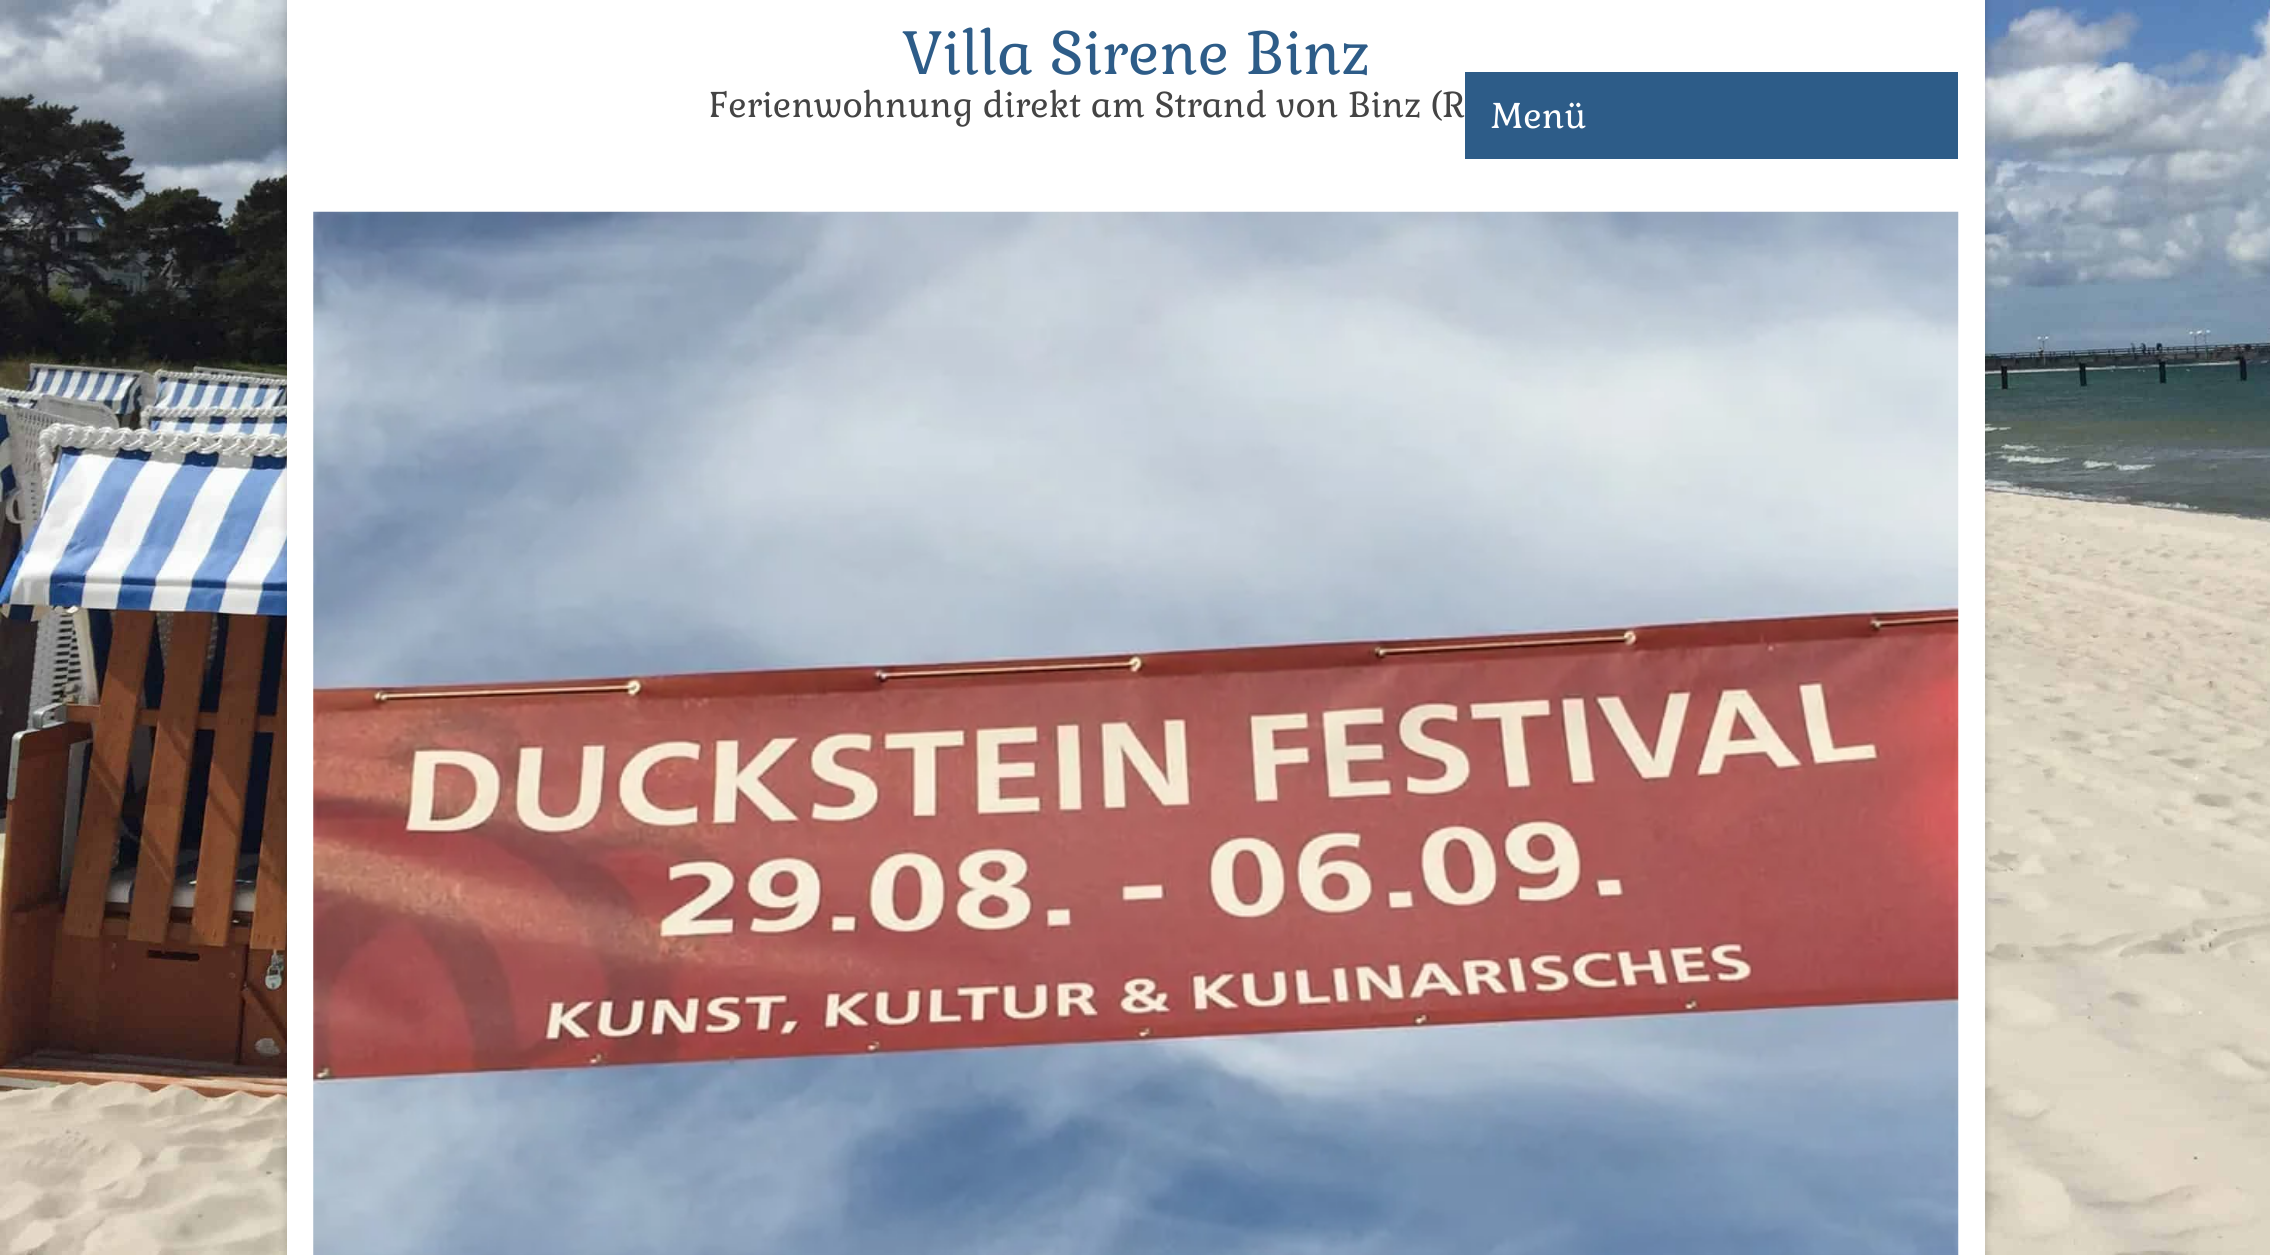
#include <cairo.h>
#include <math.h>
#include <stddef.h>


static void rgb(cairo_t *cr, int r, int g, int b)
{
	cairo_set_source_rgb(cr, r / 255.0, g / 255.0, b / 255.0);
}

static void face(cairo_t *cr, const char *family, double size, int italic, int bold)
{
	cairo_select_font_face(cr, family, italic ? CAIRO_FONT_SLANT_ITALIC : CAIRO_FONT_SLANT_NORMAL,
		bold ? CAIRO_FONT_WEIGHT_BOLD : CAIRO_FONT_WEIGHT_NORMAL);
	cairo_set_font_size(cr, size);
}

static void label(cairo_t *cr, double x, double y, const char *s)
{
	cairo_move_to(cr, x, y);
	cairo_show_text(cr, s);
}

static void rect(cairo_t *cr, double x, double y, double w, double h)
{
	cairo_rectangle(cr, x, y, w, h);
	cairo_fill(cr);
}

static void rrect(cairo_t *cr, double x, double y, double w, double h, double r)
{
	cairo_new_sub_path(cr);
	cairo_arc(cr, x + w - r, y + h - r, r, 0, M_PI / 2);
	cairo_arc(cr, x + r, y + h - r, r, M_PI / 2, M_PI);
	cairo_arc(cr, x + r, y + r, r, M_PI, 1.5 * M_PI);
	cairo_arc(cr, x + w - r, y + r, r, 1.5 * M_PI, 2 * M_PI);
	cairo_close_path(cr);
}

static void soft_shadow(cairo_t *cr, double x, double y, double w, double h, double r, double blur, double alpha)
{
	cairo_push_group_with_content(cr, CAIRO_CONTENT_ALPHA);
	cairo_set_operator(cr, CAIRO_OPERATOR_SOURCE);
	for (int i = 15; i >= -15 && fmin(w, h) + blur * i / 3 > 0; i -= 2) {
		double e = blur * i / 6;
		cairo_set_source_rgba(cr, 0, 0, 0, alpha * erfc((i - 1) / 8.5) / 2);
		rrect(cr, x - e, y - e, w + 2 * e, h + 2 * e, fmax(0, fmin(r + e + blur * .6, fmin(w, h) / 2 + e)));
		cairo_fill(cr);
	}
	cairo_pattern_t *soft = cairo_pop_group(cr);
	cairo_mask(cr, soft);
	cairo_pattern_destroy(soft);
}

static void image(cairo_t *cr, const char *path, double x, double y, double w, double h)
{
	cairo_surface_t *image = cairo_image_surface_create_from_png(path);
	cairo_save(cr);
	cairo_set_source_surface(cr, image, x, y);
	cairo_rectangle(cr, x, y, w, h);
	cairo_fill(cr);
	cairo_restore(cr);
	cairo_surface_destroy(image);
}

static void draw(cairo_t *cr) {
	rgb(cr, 255, 255, 255);
	cairo_paint(cr);
	image(cr, "image0.png", 0, 0, 2270, 1255);
	rgb(cr, 0, 0, 0);
	soft_shadow(cr, 285, -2, 1701, 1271, 0, 4.5, 0.16);
	rgb(cr, 255, 255, 255);
	rect(cr, 287, 0, 1698, 1255);
	image(cr, "image1.png", 313, 211, 1646, 1044);
	face(cr, "Gabriela", 59.5, 0, 0);
	rgb(cr, 45, 92, 136);
	label(cr, 902, 74, "Villa Sirene Binz");
	face(cr, "Gabriela", 35, 0, 0);
	rgb(cr, 68, 68, 68);
	label(cr, 709, 117, "Ferienwohnung direkt am Strand von Binz (R");
	rgb(cr, 45, 92, 136);
	rect(cr, 1465, 72, 493, 87);
	rgb(cr, 255, 255, 255);
	label(cr, 1491, 128, "Menü");
}

int main(void) {
	cairo_surface_t *surface = cairo_image_surface_create(CAIRO_FORMAT_RGB24, 2270, 1255);
	cairo_t *cr = cairo_create(surface);
	cairo_font_options_t *options = cairo_font_options_create();
	cairo_font_options_set_hint_metrics(options, CAIRO_HINT_METRICS_OFF);
	cairo_font_options_set_hint_style(options, CAIRO_HINT_STYLE_NONE);
	cairo_set_font_options(cr, options);
	cairo_set_miter_limit(cr, 4);
	draw(cr);
	cairo_surface_write_to_png(surface, "render.png");
	cairo_font_options_destroy(options);
	cairo_destroy(cr);
	cairo_surface_destroy(surface);
	return 0;
}
